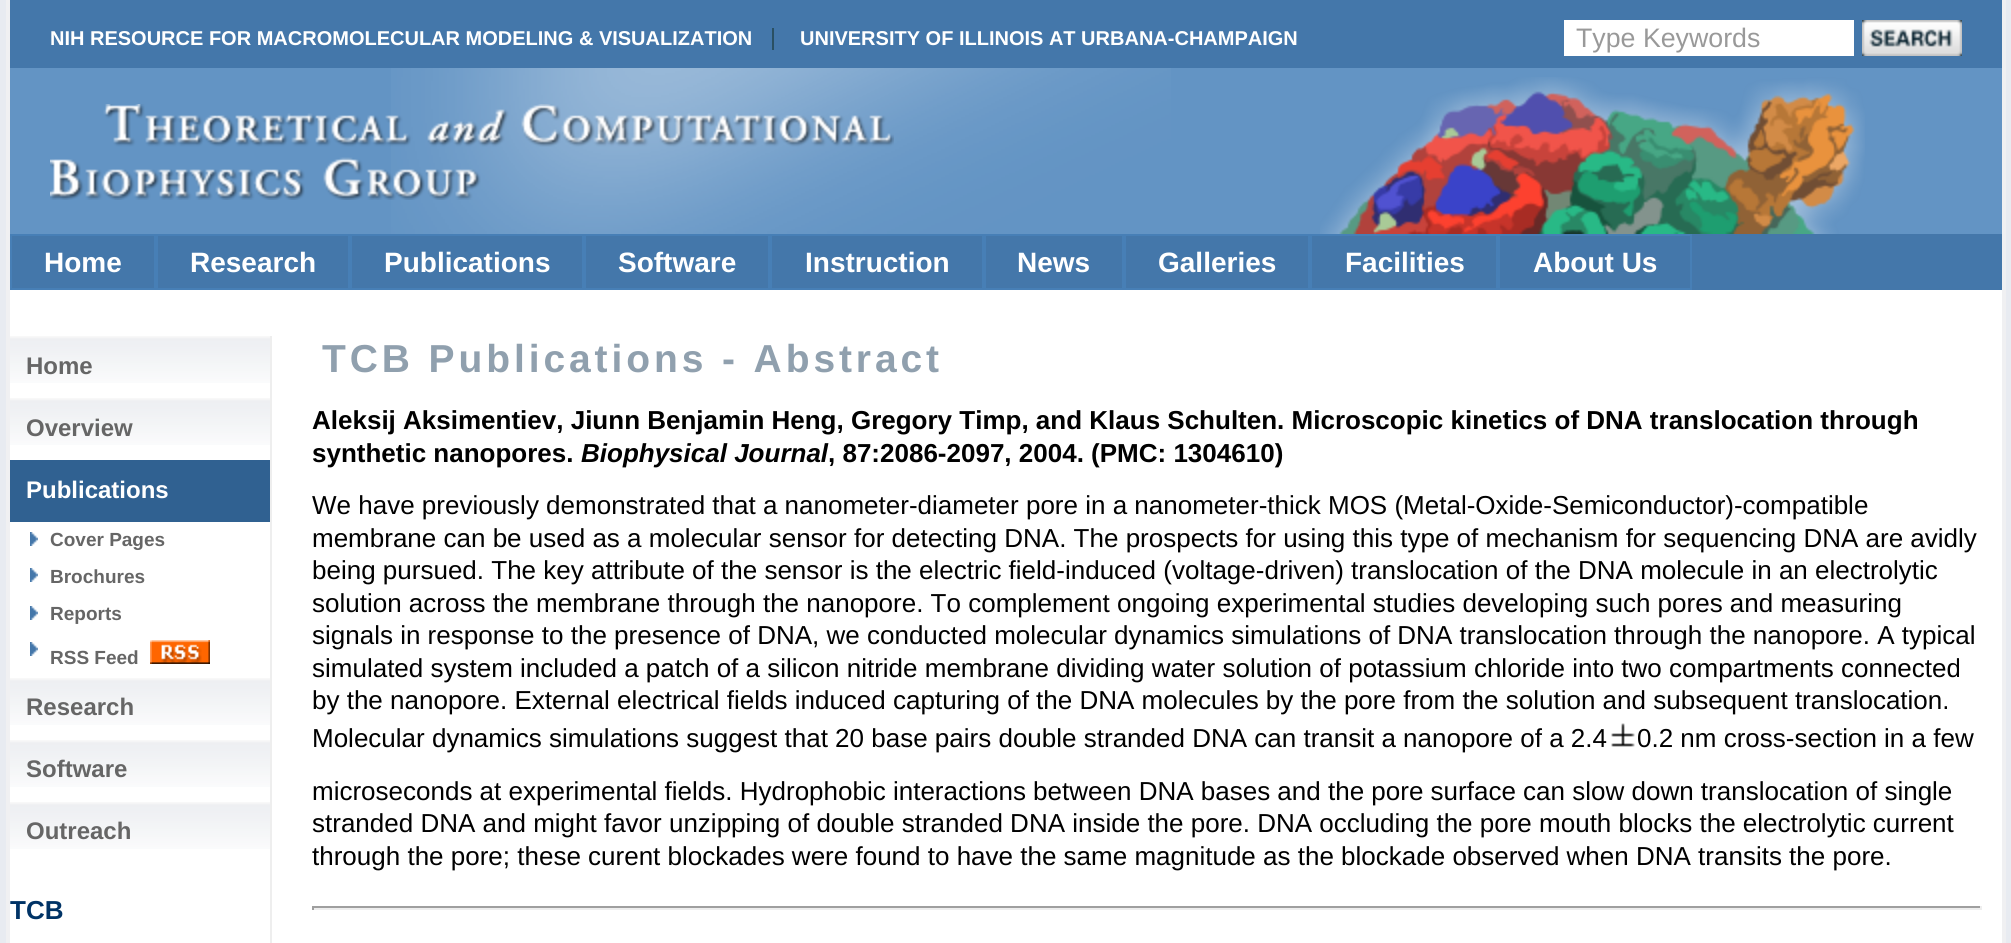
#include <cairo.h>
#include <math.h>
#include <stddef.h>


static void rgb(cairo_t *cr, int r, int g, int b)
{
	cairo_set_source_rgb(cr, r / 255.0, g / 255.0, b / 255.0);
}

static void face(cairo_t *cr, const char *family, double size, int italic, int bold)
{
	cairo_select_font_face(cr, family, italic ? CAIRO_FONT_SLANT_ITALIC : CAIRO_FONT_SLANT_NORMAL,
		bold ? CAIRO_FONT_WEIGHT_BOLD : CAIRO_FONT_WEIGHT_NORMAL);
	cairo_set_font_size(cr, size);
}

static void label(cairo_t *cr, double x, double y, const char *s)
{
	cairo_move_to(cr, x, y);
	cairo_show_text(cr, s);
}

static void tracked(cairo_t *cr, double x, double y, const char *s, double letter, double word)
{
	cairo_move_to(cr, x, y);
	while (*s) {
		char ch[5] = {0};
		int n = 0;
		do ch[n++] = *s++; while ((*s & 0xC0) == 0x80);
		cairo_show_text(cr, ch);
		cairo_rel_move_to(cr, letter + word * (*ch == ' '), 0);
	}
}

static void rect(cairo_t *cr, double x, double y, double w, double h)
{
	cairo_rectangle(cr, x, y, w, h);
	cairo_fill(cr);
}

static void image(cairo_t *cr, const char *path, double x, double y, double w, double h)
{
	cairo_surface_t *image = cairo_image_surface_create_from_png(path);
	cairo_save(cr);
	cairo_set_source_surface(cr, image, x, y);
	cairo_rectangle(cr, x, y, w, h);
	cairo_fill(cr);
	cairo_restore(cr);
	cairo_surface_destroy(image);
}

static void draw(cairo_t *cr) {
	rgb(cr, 232, 235, 241);
	cairo_paint(cr);
	rgb(cr, 255, 255, 255);
	rect(cr, 10, 290, 1992, 653);
	rgb(cr, 240, 240, 242);
	rect(cr, 2002, 0, 4, 943);
	rect(cr, 6, 0, 4, 943);
	rgb(cr, 99, 148, 196);
	rect(cr, 10, 68, 1992, 166);
	image(cr, "image0.png", 391, 68, 780, 166);
	rgb(cr, 68, 119, 170);
	rect(cr, 10, 0, 1992, 68);
	face(cr, "Liberation Sans", 20, 0, 1);
	rgb(cr, 255, 255, 255);
	label(cr, 50, 45, "NIH RESOURCE FOR MACROMOLECULAR MODELING & VISUALIZATION");
	rgb(cr, 42, 80, 99);
	rect(cr, 772, 28, 2, 22);
	rgb(cr, 255, 255, 255);
	label(cr, 800, 45, "UNIVERSITY OF ILLINOIS AT URBANA-CHAMPAIGN");
	rect(cr, 1564, 20, 290, 36);
	face(cr, "Liberation Sans", 26.75, 0, 0);
	rgb(cr, 153, 153, 153);
	label(cr, 1576, 47, "Type Keywords");
	image(cr, "image1.png", 1862, 20, 100, 36);
	image(cr, "image2.png", 1320, 77, 545, 157);
	image(cr, "image3.png", 50, 104, 844, 96);
	rgb(cr, 68, 119, 170);
	rect(cr, 12, 234, 1990, 56);
	cairo_rectangle(cr, 11, 235, 144, 54);
	rgb(cr, 71, 127, 182);
	cairo_stroke(cr);
	face(cr, "Liberation Sans", 28, 0, 1);
	rgb(cr, 255, 255, 255);
	label(cr, 44, 272, "Home");
	cairo_rectangle(cr, 157, 235, 192, 54);
	rgb(cr, 71, 127, 182);
	cairo_stroke(cr);
	rgb(cr, 255, 255, 255);
	label(cr, 190, 272, "Research");
	cairo_rectangle(cr, 351, 235, 232, 54);
	rgb(cr, 71, 127, 182);
	cairo_stroke(cr);
	rgb(cr, 255, 255, 255);
	label(cr, 384, 272, "Publications");
	cairo_rectangle(cr, 585, 235, 184, 54);
	rgb(cr, 71, 127, 182);
	cairo_stroke(cr);
	rgb(cr, 255, 255, 255);
	label(cr, 618, 272, "Software");
	cairo_rectangle(cr, 771, 235, 212, 54);
	rgb(cr, 71, 127, 182);
	cairo_stroke(cr);
	rgb(cr, 255, 255, 255);
	label(cr, 805, 272, "Instruction");
	cairo_rectangle(cr, 985, 235, 138, 54);
	rgb(cr, 71, 127, 182);
	cairo_stroke(cr);
	rgb(cr, 255, 255, 255);
	label(cr, 1017, 272, "News");
	cairo_rectangle(cr, 1125, 235, 184, 54);
	rgb(cr, 71, 127, 182);
	cairo_stroke(cr);
	rgb(cr, 255, 255, 255);
	label(cr, 1158, 272, "Galleries");
	cairo_rectangle(cr, 1311, 235, 186, 54);
	rgb(cr, 71, 127, 182);
	cairo_stroke(cr);
	rgb(cr, 255, 255, 255);
	label(cr, 1345, 272, "Facilities");
	cairo_rectangle(cr, 1499, 235, 192, 54);
	rgb(cr, 71, 127, 182);
	cairo_stroke(cr);
	rgb(cr, 255, 255, 255);
	label(cr, 1533, 272, "About Us");
	image(cr, "image4.png", 10, 336, 260, 47);
	face(cr, "Liberation Sans", 24, 0, 1);
	rgb(cr, 102, 102, 102);
	label(cr, 26, 374, "Home");
	image(cr, "image4.png", 10, 398, 260, 47);
	label(cr, 26, 436, "Overview");
	rgb(cr, 48, 97, 145);
	rect(cr, 10, 460, 260, 62);
	rgb(cr, 255, 255, 255);
	label(cr, 26, 498, "Publications");
	image(cr, "image5.png", 30, 532, 8, 14);
	face(cr, "Liberation Sans", 19, 0, 1);
	rgb(cr, 102, 102, 102);
	label(cr, 50, 546, "Cover Pages");
	image(cr, "image5.png", 30, 568, 8, 14);
	label(cr, 50, 583, "Brochures");
	image(cr, "image5.png", 30, 606, 8, 14);
	label(cr, 50, 620, "Reports");
	image(cr, "image5.png", 30, 642, 8, 14);
	label(cr, 50, 664, "RSS Feed");
	image(cr, "image6.png", 150, 640, 60, 24);
	image(cr, "image4.png", 10, 678, 260, 47);
	face(cr, "Liberation Sans", 24, 0, 1);
	label(cr, 26, 715, "Research");
	image(cr, "image4.png", 10, 740, 260, 47);
	label(cr, 26, 777, "Software");
	image(cr, "image4.png", 10, 802, 260, 47);
	label(cr, 26, 839, "Outreach");
	face(cr, "Liberation Sans", 26, 0, 1);
	rgb(cr, 0, 51, 102);
	label(cr, 10, 919, "TCB");
	rgb(cr, 238, 238, 238);
	rect(cr, 270, 336, 2, 607);
	face(cr, "Liberation Sans", 39, 0, 1);
	rgb(cr, 144, 160, 174);
	tracked(cr, 322, 372, "TCB Publications - Abstract", 3.9, 0);
	face(cr, "Liberation Sans", 26, 0, 1);
	rgb(cr, 0, 0, 0);
	label(cr, 312, 429, "Aleksij Aksimentiev, Jiunn Benjamin Heng, Gregory Timp, and Klaus Schulten. Microscopic kinetics of DNA translocation through");
	label(cr, 312, 462, "synthetic nanopores.");
	face(cr, "Liberation Sans", 26, 1, 1);
	label(cr, 581, 462, "Biophysical Journal");
	face(cr, "Liberation Sans", 26, 0, 1);
	label(cr, 828, 462, ", 87:2086-2097, 2004. (PMC: 1304610)");
	face(cr, "Liberation Sans", 26, 0, 0);
	label(cr, 312, 514, "We have previously demonstrated that a nanometer-diameter pore in a nanometer-thick MOS (Metal-Oxide-Semiconductor)-compatible");
	label(cr, 312, 547, "membrane can be used as a molecular sensor for detecting DNA. The prospects for using this type of mechanism for sequencing DNA are avidly");
	label(cr, 312, 579, "being pursued. The key attribute of the sensor is the electric field-induced (voltage-driven) translocation of the DNA molecule in an electrolytic");
	label(cr, 312, 612, "solution across the membrane through the nanopore. To complement ongoing experimental studies developing such pores and measuring");
	label(cr, 312, 644, "signals in response to the presence of DNA, we conducted molecular dynamics simulations of DNA translocation through the nanopore. A typical");
	label(cr, 312, 677, "simulated system included a patch of a silicon nitride membrane dividing water solution of potassium chloride into two compartments connected");
	label(cr, 312, 709, "by the nanopore. External electrical fields induced capturing of the DNA molecules by the pore from the solution and subsequent translocation.");
	label(cr, 312, 747, "Molecular dynamics simulations suggest that 20 base pairs double stranded DNA can transit a nanopore of a 2.4");
	image(cr, "image7.png", 1611, 723, 24, 24);
	label(cr, 1637, 747, "0.2 nm cross-section in a few");
	label(cr, 312, 800, "microseconds at experimental fields. Hydrophobic interactions between DNA bases and the pore surface can slow down translocation of single");
	label(cr, 312, 832, "stranded DNA and might favor unzipping of double stranded DNA inside the pore. DNA occluding the pore mouth blocks the electrolytic current");
	label(cr, 312, 865, "through the pore; these curent blockades were found to have the same magnitude as the blockade observed when DNA transits the pore.");
	rgb(cr, 159, 159, 159);
	rect(cr, 312, 906, 1670, 2);
	rgb(cr, 238, 238, 238);
	rect(cr, 1980, 906, 2, 4);
	rect(cr, 312, 908, 1670, 2);
	rgb(cr, 159, 159, 159);
	rect(cr, 312, 906, 2, 4);
}

int main(void) {
	cairo_surface_t *surface = cairo_image_surface_create(CAIRO_FORMAT_RGB24, 2011, 943);
	cairo_t *cr = cairo_create(surface);
	cairo_font_options_t *options = cairo_font_options_create();
	cairo_font_options_set_hint_metrics(options, CAIRO_HINT_METRICS_OFF);
	cairo_font_options_set_hint_style(options, CAIRO_HINT_STYLE_NONE);
	cairo_set_font_options(cr, options);
	cairo_set_miter_limit(cr, 4);
	draw(cr);
	cairo_surface_write_to_png(surface, "render.png");
	cairo_font_options_destroy(options);
	cairo_destroy(cr);
	cairo_surface_destroy(surface);
	return 0;
}
